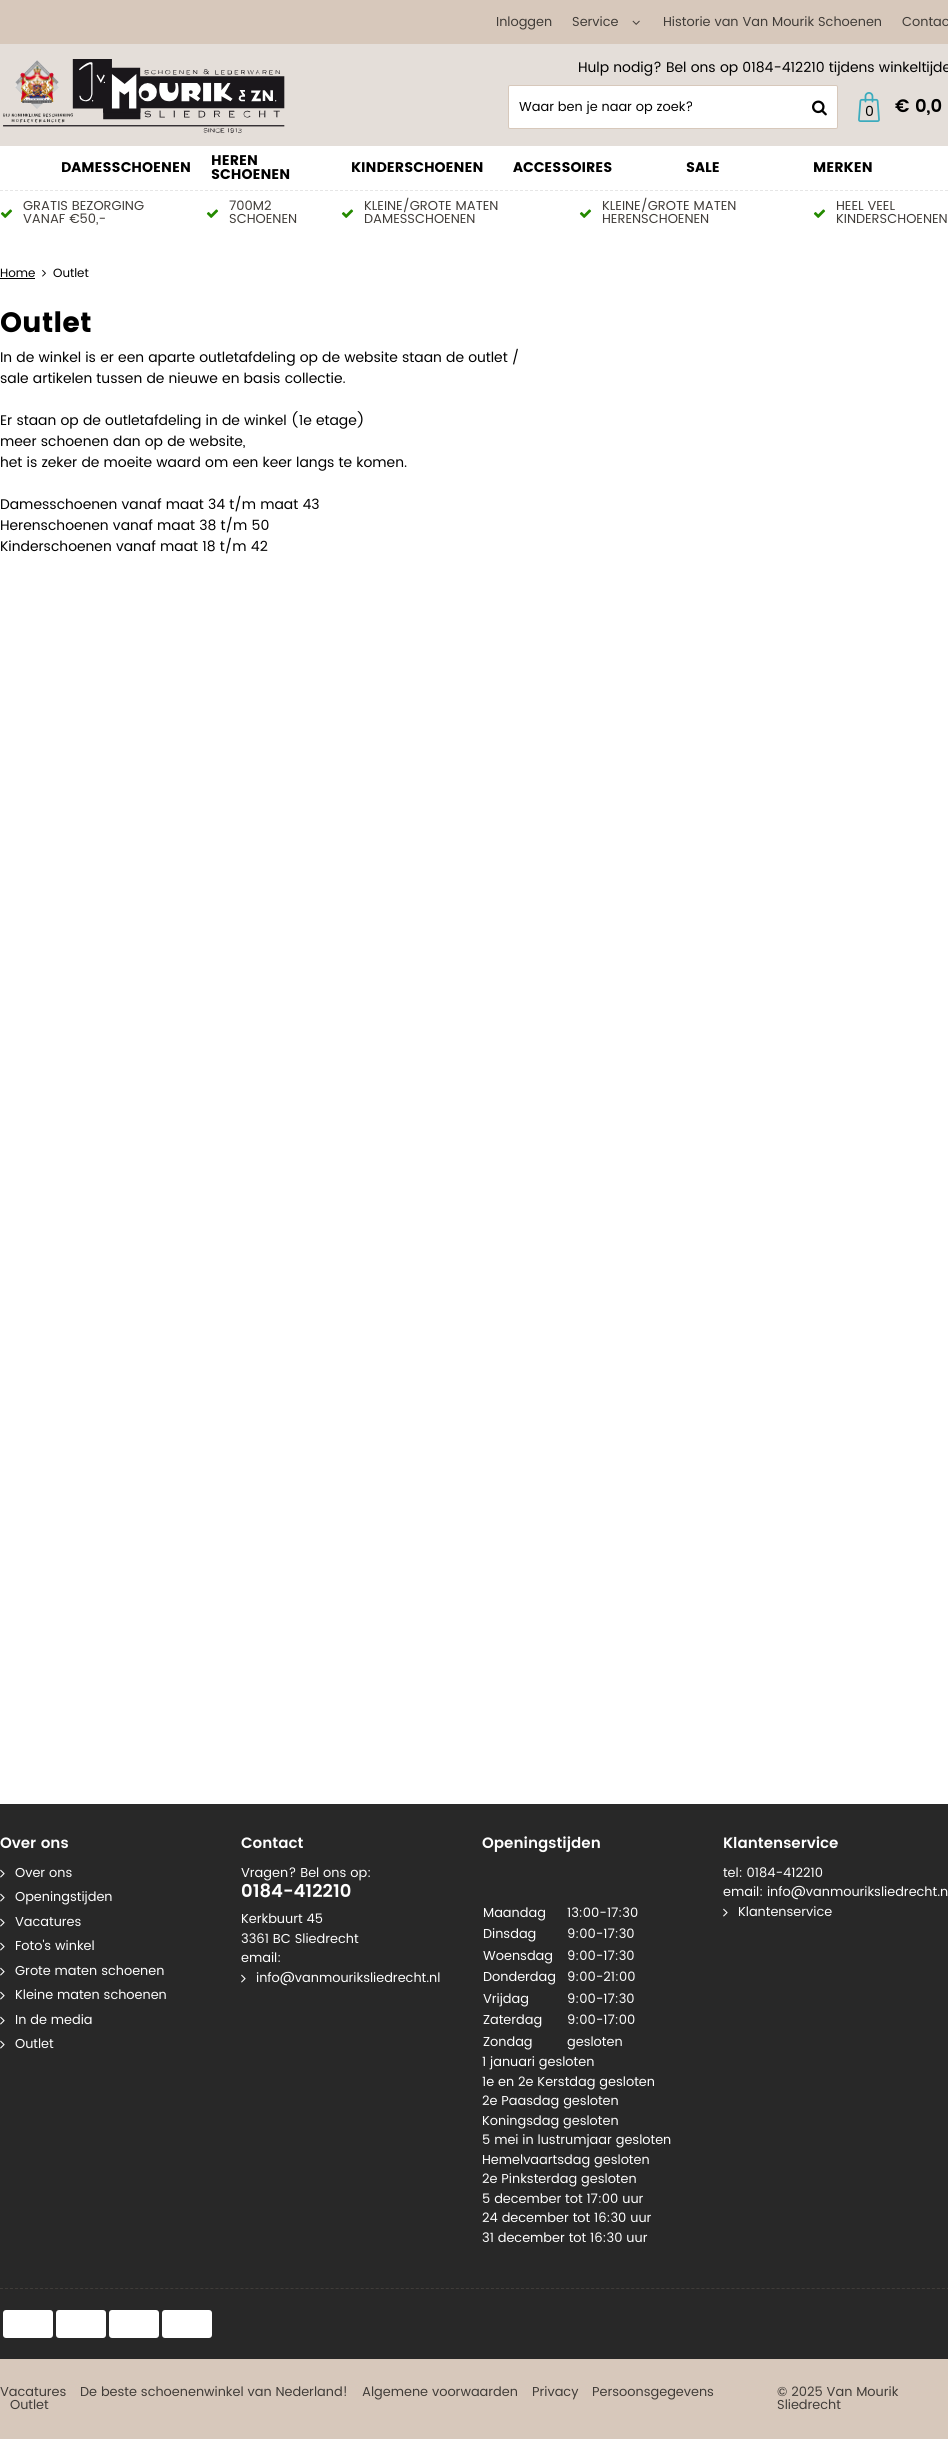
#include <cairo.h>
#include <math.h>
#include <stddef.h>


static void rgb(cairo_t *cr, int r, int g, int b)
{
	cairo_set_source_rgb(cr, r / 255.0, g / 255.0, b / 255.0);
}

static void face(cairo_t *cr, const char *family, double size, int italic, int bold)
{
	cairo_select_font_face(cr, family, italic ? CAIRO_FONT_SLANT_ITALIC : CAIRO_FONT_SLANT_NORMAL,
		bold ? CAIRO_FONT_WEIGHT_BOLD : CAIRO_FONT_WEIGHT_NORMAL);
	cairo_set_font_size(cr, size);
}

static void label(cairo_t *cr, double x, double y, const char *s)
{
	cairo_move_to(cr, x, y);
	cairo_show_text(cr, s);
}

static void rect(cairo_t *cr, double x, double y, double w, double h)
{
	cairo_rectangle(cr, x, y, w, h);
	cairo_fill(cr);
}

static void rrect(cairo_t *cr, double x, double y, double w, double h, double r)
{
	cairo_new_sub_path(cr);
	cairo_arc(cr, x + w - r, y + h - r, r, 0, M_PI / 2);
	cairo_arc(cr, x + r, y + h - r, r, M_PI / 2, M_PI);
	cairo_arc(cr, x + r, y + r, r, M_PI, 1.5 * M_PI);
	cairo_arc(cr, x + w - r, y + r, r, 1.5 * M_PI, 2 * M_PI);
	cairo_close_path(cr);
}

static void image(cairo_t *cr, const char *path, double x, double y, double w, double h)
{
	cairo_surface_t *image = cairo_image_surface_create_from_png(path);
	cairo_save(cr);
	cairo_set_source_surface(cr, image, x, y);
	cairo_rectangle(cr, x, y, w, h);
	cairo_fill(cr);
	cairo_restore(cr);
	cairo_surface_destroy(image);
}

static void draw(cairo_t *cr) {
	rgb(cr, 255, 255, 255);
	cairo_paint(cr);
	rgb(cr, 215, 200, 187);
	rect(cr, 0, 0, 948, 44);
	face(cr, "Poppins", 13, 0, 0);
	rgb(cr, 64, 60, 56);
	label(cr, 496, 26, "Inloggen");
	label(cr, 572, 26, "Service");
	image(cr, "image0.png", 632, 20, 8, 5);
	label(cr, 663, 26, "Historie van Van Mourik Schoenen");
	label(cr, 902, 26, "Contac");
	rgb(cr, 228, 222, 217);
	rect(cr, 0, 44, 948, 102);
	image(cr, "image1.png", 3, 59, 282, 74);
	face(cr, "Poppins", 14, 0, 0);
	rgb(cr, 0, 0, 0);
	label(cr, 578, 72, "Hulp nodig? Bel ons op 0184-412210 tijdens winkeltijde");
	rgb(cr, 255, 255, 255);
	rrect(cr, 508.5, 85.5, 329, 43, 1.5);
	cairo_fill_preserve(cr);
	rgb(cr, 215, 200, 187);
	cairo_set_line_width(cr, 1);
	cairo_stroke(cr);
	cairo_save(cr);
	cairo_rectangle(cr, 519, 101, 228, 13);
	cairo_clip(cr);
	face(cr, "Poppins", 13, 0, 0);
	rgb(cr, 0, 0, 0);
	label(cr, 519, 111, "Waar ben je naar op zoek?");
	cairo_restore(cr);
	image(cr, "image2.png", 812, 100, 15, 16);
	image(cr, "image3.png", 858, 92, 22, 30);
	rgb(cr, 0, 0, 0);
	label(cr, 865, 116, "0");
	face(cr, "Poppins SemiBold", 18, 0, 0);
	label(cr, 895, 112, "€ 0,0");
	face(cr, "Poppins", 14, 0, 1);
	label(cr, 61, 172, "DAMESSCHOENEN");
	label(cr, 211, 165, "HEREN");
	label(cr, 211, 179, "SCHOENEN");
	label(cr, 351, 172, "KINDERSCHOENEN");
	label(cr, 513, 172, "ACCESSOIRES");
	label(cr, 686, 172, "SALE");
	label(cr, 813, 172, "MERKEN");
	cairo_new_path(cr);
	cairo_move_to(cr, 0, 190.5);
	cairo_line_to(cr, 948, 190.5);
	rgb(cr, 230, 230, 230);
	cairo_set_dash(cr, (double[]){3, 2}, 2, 0);
	cairo_stroke(cr);
	image(cr, "image4.png", 0, 209, 13, 9);
	face(cr, "Poppins", 13, 0, 0);
	rgb(cr, 64, 60, 56);
	label(cr, 23, 210, "GRATIS BEZORGING");
	label(cr, 23, 223, "VANAF €50,-");
	image(cr, "image4.png", 206, 209, 13, 9);
	label(cr, 229, 210, "700M2");
	label(cr, 229, 223, "SCHOENEN");
	image(cr, "image4.png", 341, 209, 13, 9);
	label(cr, 364, 210, "KLEINE/GROTE MATEN");
	label(cr, 364, 223, "DAMESSCHOENEN");
	image(cr, "image4.png", 579, 209, 13, 9);
	label(cr, 602, 210, "KLEINE/GROTE MATEN");
	label(cr, 602, 223, "HERENSCHOENEN");
	image(cr, "image4.png", 813, 209, 13, 9);
	label(cr, 836, 210, "HEEL VEEL");
	label(cr, 836, 223, "KINDERSCHOENEN");
	face(cr, "Poppins", 12, 0, 0);
	rgb(cr, 0, 0, 0);
	label(cr, 0, 277, "Home");
	rect(cr, 0, 278, 35, 1);
	image(cr, "image5.png", 42, 269, 4, 8);
	label(cr, 53, 277, "Outlet");
	face(cr, "Poppins", 28, 0, 1);
	label(cr, 0, 332, "Outlet");
	face(cr, "Poppins", 14, 0, 0);
	label(cr, 0, 362, "In de winkel is er een aparte outletafdeling op de website staan de outlet /");
	label(cr, 0, 383, "sale artikelen tussen de nieuwe en basis collectie.");
	label(cr, 0, 425, "Er staan op de outletafdeling in de winkel (1e etage)");
	label(cr, 0, 446, "meer schoenen dan op de website,");
	label(cr, 0, 467, "het is zeker de moeite waard om een keer langs te komen.");
	label(cr, 0, 509, "Damesschoenen vanaf maat 34 t/m maat 43");
	label(cr, 0, 530, "Herenschoenen vanaf maat 38 t/m 50");
	label(cr, 0, 551, "Kinderschoenen vanaf maat 18 t/m 42");
	rgb(cr, 40, 40, 40);
	rect(cr, 0, 1804, 948, 555);
	face(cr, "Poppins SemiBold", 15, 0, 0);
	rgb(cr, 255, 255, 255);
	label(cr, 0, 1848, "Over ons");
	image(cr, "image6.png", 0, 1869, 5, 9);
	face(cr, "Poppins", 13, 0, 0);
	label(cr, 15, 1877, "Over ons");
	image(cr, "image6.png", 0, 1893, 5, 9);
	label(cr, 15, 1901, "Openingstijden");
	image(cr, "image6.png", 0, 1918, 5, 9);
	label(cr, 15, 1926, "Vacatures");
	image(cr, "image6.png", 0, 1942, 5, 9);
	label(cr, 15, 1950, "Foto's winkel");
	image(cr, "image6.png", 0, 1967, 5, 9);
	label(cr, 15, 1975, "Grote maten schoenen");
	image(cr, "image6.png", 0, 1991, 5, 9);
	label(cr, 15, 1999, "Kleine maten schoenen");
	image(cr, "image6.png", 0, 2016, 5, 9);
	label(cr, 15, 2024, "In de media");
	image(cr, "image6.png", 0, 2040, 5, 9);
	label(cr, 15, 2048, "Outlet");
	face(cr, "Poppins SemiBold", 15, 0, 0);
	label(cr, 241, 1848, "Contact");
	face(cr, "Poppins", 13, 0, 0);
	label(cr, 241, 1877, "Vragen? Bel ons op:");
	face(cr, "Poppins SemiBold", 18, 0, 0);
	label(cr, 241, 1897, "0184-412210");
	face(cr, "Poppins", 13, 0, 0);
	label(cr, 241, 1923, "Kerkbuurt 45");
	label(cr, 241, 1943, "3361 BC Sliedrecht");
	label(cr, 241, 1962, "email:");
	image(cr, "image6.png", 241, 1974, 5, 9);
	label(cr, 256, 1982, "info@vanmouriksliedrecht.nl");
	face(cr, "Poppins SemiBold", 15, 0, 0);
	label(cr, 482, 1848, "Openingstijden");
	face(cr, "Poppins", 13, 0, 0);
	label(cr, 483, 1917, "Maandag");
	label(cr, 567, 1917, "13:00-17:30");
	label(cr, 483, 1938, "Dinsdag");
	label(cr, 567, 1938, "9:00-17:30");
	label(cr, 483, 1960, "Woensdag");
	label(cr, 567, 1960, "9:00-17:30");
	label(cr, 483, 1981, "Donderdag");
	label(cr, 567, 1981, "9:00-21:00");
	label(cr, 483, 2003, "Vrijdag");
	label(cr, 567, 2003, "9:00-17:30");
	label(cr, 483, 2024, "Zaterdag");
	label(cr, 567, 2024, "9:00-17:00");
	label(cr, 483, 2046, "Zondag");
	label(cr, 567, 2046, "gesloten");
	label(cr, 482, 2066, "1 januari gesloten");
	label(cr, 482, 2086, "1e en 2e Kerstdag gesloten");
	label(cr, 482, 2105, "2e Paasdag gesloten");
	label(cr, 482, 2125, "Koningsdag gesloten");
	label(cr, 482, 2144, "5 mei in lustrumjaar gesloten");
	label(cr, 482, 2164, "Hemelvaartsdag gesloten");
	label(cr, 482, 2183, "2e Pinksterdag gesloten");
	label(cr, 482, 2203, "5 december tot 17:00 uur");
	label(cr, 482, 2222, "24 december tot 16:30 uur");
	label(cr, 482, 2242, "31 december tot 16:30 uur");
	face(cr, "Poppins SemiBold", 15, 0, 0);
	label(cr, 723, 1848, "Klantenservice");
	face(cr, "Poppins", 13, 0, 0);
	label(cr, 723, 1877, "tel: 0184-412210");
	label(cr, 723, 1896, "email: info@vanmouriksliedrecht.n");
	image(cr, "image6.png", 723, 1908, 5, 9);
	label(cr, 738, 1916, "Klantenservice");
	cairo_new_path(cr);
	cairo_move_to(cr, 0, 2288.5);
	cairo_line_to(cr, 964, 2288.5);
	rgb(cr, 64, 60, 56);
	cairo_set_dash(cr, (double[]){3, 2.01}, 2, 0);
	cairo_stroke(cr);
	rgb(cr, 255, 255, 255);
	rrect(cr, 3, 2310, 50, 28, 3);
	cairo_fill(cr);
	rrect(cr, 56, 2310, 50, 28, 3);
	cairo_fill(cr);
	rrect(cr, 109, 2310, 50, 28, 3);
	cairo_fill(cr);
	rrect(cr, 162, 2310, 50, 28, 3);
	cairo_fill(cr);
	rgb(cr, 215, 200, 187);
	rect(cr, 0, 2359, 948, 80);
	rgb(cr, 64, 60, 56);
	label(cr, 0, 2396, "Vacatures");
	label(cr, 80, 2396, "De beste schoenenwinkel van Nederland!");
	label(cr, 362, 2396, "Algemene voorwaarden");
	label(cr, 532, 2396, "Privacy");
	label(cr, 592, 2396, "Persoonsgegevens");
	label(cr, 10, 2409, "Outlet");
	label(cr, 777, 2396, "© 2025 Van Mourik");
	label(cr, 777, 2409, "Sliedrecht");
}

int main(void) {
	cairo_surface_t *surface = cairo_image_surface_create(CAIRO_FORMAT_RGB24, 948, 2439);
	cairo_t *cr = cairo_create(surface);
	cairo_font_options_t *options = cairo_font_options_create();
	cairo_font_options_set_hint_metrics(options, CAIRO_HINT_METRICS_OFF);
	cairo_font_options_set_hint_style(options, CAIRO_HINT_STYLE_NONE);
	cairo_set_font_options(cr, options);
	cairo_set_miter_limit(cr, 4);
	draw(cr);
	cairo_surface_write_to_png(surface, "render.png");
	cairo_font_options_destroy(options);
	cairo_destroy(cr);
	cairo_surface_destroy(surface);
	return 0;
}
